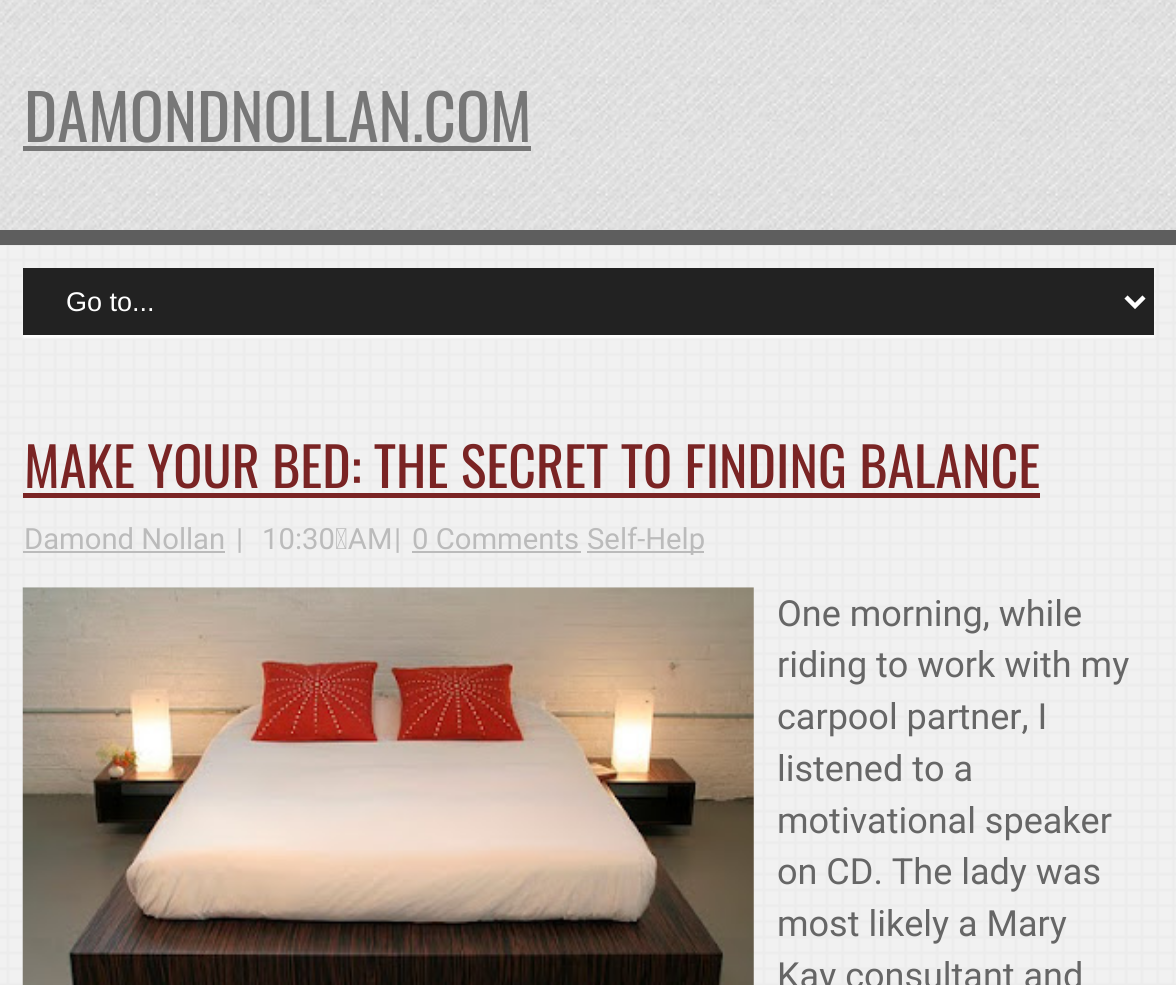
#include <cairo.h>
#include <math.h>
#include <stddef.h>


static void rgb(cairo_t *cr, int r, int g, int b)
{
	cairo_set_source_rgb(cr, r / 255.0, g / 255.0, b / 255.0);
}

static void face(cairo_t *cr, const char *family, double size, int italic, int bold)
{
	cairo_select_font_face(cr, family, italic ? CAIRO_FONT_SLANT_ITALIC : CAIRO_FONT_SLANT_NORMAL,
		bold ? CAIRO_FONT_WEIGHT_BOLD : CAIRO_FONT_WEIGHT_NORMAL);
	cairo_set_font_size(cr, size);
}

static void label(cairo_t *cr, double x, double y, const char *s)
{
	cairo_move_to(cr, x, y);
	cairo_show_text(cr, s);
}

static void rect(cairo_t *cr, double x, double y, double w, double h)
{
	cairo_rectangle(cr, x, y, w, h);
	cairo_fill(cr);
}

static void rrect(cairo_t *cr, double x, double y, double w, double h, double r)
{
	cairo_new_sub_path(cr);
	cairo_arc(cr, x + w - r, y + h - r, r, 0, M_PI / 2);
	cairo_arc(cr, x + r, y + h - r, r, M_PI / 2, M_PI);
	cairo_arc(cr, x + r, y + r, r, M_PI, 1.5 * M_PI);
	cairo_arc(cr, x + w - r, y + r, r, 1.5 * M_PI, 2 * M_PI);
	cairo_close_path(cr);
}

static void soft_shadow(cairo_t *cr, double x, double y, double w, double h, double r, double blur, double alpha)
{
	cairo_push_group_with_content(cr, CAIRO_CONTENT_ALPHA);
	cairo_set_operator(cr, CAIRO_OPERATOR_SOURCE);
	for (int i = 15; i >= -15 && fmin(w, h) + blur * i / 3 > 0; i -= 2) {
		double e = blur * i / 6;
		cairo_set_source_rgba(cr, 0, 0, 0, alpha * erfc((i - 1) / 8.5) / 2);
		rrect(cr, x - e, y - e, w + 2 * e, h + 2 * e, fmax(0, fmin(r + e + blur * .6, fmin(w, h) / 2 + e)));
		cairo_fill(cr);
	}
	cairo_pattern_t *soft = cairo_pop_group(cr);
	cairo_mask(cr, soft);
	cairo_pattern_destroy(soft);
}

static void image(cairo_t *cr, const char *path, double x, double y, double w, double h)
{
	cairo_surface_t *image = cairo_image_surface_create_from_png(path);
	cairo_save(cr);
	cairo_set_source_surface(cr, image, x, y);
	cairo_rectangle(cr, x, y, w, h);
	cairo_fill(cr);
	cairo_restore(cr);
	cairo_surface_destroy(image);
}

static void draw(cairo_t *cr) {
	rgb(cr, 255, 255, 255);
	cairo_paint(cr);
	image(cr, "image0.png", 0, 245, 1176, 740);
	image(cr, "image1.png", 0, 0, 1176, 246);
	rgb(cr, 94, 94, 94);
	rect(cr, 0, 230, 1176, 15);
	face(cr, "Oswald", 63, 0, 0);
	rgb(cr, 119, 119, 119);
	label(cr, 24, 142, "DAMONDNOLLAN.COM");
	rect(cr, 23, 146, 508, 5);
	rgb(cr, 255, 255, 255);
	soft_shadow(cr, 23, 270, 1131, 68, 0, 1, 0.9);
	rgb(cr, 34, 34, 34);
	rect(cr, 23, 268, 1131, 67);
	cairo_new_path(cr);
	cairo_move_to(cr, 1126, 297);
	cairo_line_to(cr, 1135, 306);
	cairo_line_to(cr, 1144, 297);
	rgb(cr, 255, 255, 255);
	cairo_set_line_width(cr, 4.5);
	cairo_stroke(cr);
	face(cr, "Liberation Sans", 27, 0, 0);
	label(cr, 66, 311, "Go to...");
	face(cr, "Oswald", 54, 0, 0);
	rgb(cr, 122, 36, 36);
	label(cr, 24, 488, "MAKE YOUR BED: THE SECRET TO FINDING BALANCE");
	rect(cr, 23, 493, 1017, 5);
	face(cr, "Roboto", 29.25, 0, 0);
	rgb(cr, 187, 187, 187);
	label(cr, 24, 549, "Damond Nollan");
	rect(cr, 23, 551, 202, 2);
	label(cr, 236, 549, "|");
	label(cr, 262, 549, "10:30 AM");
	label(cr, 394, 549, "|");
	label(cr, 412, 549, "0 Comments");
	rect(cr, 412, 551, 169, 2);
	rect(cr, 587, 551, 117, 2);
	label(cr, 587, 549, "Self-Help");
	image(cr, "image2.png", 22, 587, 732, 398);
	face(cr, "Roboto", 36, 0, 0);
	rgb(cr, 102, 102, 102);
	label(cr, 777, 626, "One morning, while");
	label(cr, 777, 677, "riding to work with my");
	label(cr, 777, 729, "carpool partner, I");
	label(cr, 777, 781, "listened to a");
	label(cr, 777, 833, "motivational speaker");
	label(cr, 777, 884, "on CD. The lady was");
	label(cr, 777, 936, "most likely a Mary");
	label(cr, 777, 988, "Kay consultant and");
}

int main(void) {
	cairo_surface_t *surface = cairo_image_surface_create(CAIRO_FORMAT_RGB24, 1176, 985);
	cairo_t *cr = cairo_create(surface);
	cairo_font_options_t *options = cairo_font_options_create();
	cairo_font_options_set_hint_metrics(options, CAIRO_HINT_METRICS_OFF);
	cairo_font_options_set_hint_style(options, CAIRO_HINT_STYLE_NONE);
	cairo_set_font_options(cr, options);
	cairo_set_miter_limit(cr, 4);
	draw(cr);
	cairo_surface_write_to_png(surface, "render.png");
	cairo_font_options_destroy(options);
	cairo_destroy(cr);
	cairo_surface_destroy(surface);
	return 0;
}
